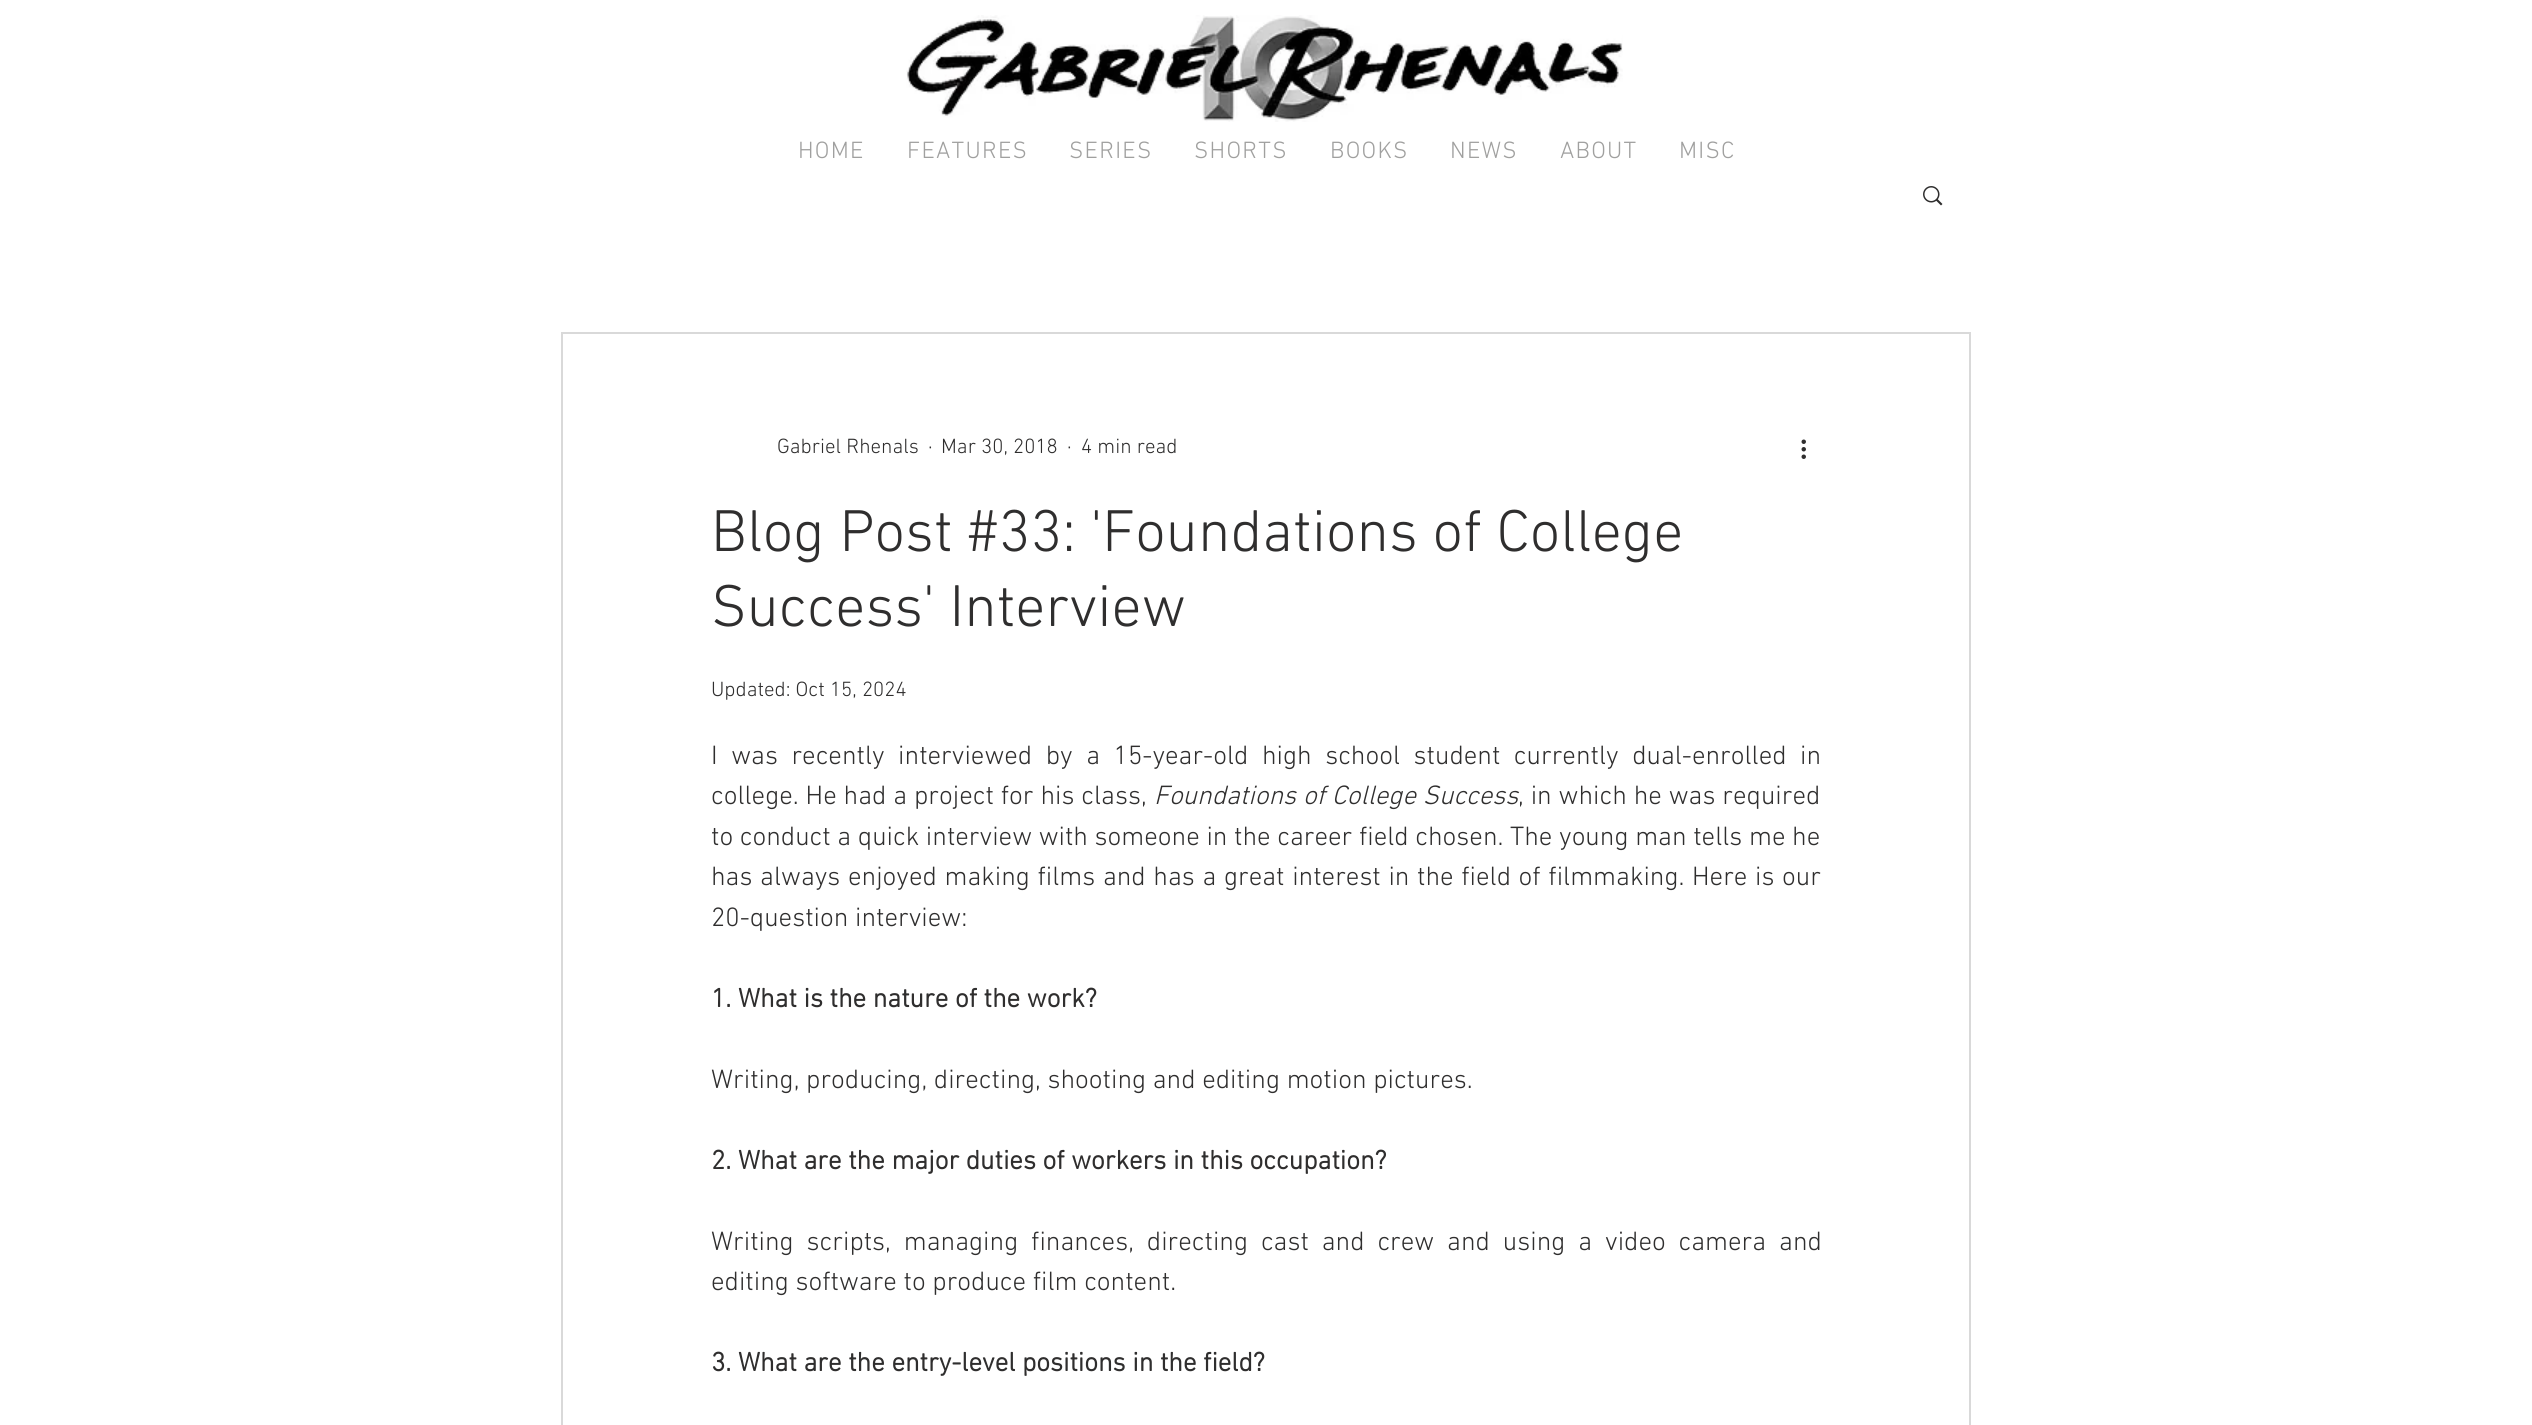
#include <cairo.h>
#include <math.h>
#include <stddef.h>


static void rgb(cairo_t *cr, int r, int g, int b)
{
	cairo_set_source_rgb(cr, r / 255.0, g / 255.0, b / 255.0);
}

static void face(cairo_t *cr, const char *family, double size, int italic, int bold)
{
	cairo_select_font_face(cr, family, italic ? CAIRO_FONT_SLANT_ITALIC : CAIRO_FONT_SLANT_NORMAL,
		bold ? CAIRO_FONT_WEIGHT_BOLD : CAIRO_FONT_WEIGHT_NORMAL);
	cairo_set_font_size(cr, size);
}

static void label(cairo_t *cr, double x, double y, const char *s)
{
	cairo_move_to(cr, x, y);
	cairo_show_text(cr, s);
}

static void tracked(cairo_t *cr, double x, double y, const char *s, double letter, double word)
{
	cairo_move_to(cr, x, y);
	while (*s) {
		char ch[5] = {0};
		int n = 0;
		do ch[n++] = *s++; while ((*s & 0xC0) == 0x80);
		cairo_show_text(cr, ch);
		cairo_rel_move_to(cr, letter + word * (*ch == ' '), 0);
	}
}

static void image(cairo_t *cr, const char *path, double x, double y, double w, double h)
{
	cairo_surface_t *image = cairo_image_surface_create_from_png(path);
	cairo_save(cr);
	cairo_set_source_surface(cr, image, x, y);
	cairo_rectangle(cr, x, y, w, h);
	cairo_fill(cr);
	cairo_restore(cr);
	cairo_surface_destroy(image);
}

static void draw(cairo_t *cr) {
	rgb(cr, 255, 255, 255);
	cairo_paint(cr);
	image(cr, "image0.png", 906, 15, 717, 107);
	face(cr, "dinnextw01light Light", 24, 0, 0);
	rgb(cr, 160, 160, 159);
	tracked(cr, 798, 158, "HOME", 1.25, 0);
	tracked(cr, 907, 158, "FEATURES", 1.25, 0);
	tracked(cr, 1069, 158, "SERIES", 1.25, 0);
	tracked(cr, 1194, 158, "SHORTS", 1.25, 0);
	tracked(cr, 1330, 158, "BOOKS", 1.25, 0);
	tracked(cr, 1450, 158, "NEWS", 1.25, 0);
	tracked(cr, 1560, 158, "ABOUT", 1.25, 0);
	tracked(cr, 1679, 158, "MISC", 1.25, 0);
	image(cr, "image1.png", 1923, 186, 20, 20);
	cairo_rectangle(cr, 562, 333, 1408, 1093);
	rgb(cr, 217, 217, 217);
	cairo_stroke(cr);
	face(cr, "dinnextw01light Light", 21, 0, 0);
	rgb(cr, 47, 46, 46);
	label(cr, 777, 453, "Gabriel Rhenals");
	label(cr, 928, 453, "·");
	label(cr, 941, 453, "Mar 30, 2018");
	label(cr, 1067, 453, "·");
	label(cr, 1081, 453, "4 min read");
	image(cr, "image2.png", 1801, 439, 5, 20);
	face(cr, "dinnextw01light Light", 60, 0, 0);
	label(cr, 711, 551, "Blog Post #33: 'Foundations of College");
	label(cr, 711, 626, "Success' Interview");
	face(cr, "dinnextw01light Light", 21, 0, 0);
	label(cr, 711, 696, "Updated: Oct 15, 2024");
	face(cr, "dinnextw01light Light", 27, 0, 0);
	tracked(cr, 711, 764, "I was recently interviewed by a 15-year-old high school student currently dual-enrolled in", 0, 6.9);
	tracked(cr, 711, 804, "college. He had a project for his class,", 0, 0.25);
	face(cr, "dinnextw01light Light", 27, 1, 0);
	tracked(cr, 1154, 804, "Foundations of College Success", 0, 0.25);
	face(cr, "dinnextw01light Light", 27, 0, 0);
	tracked(cr, 1518, 804, ", in which he was required", 0, 0.25);
	label(cr, 711, 845, "to conduct a quick interview with someone in the career field chosen. The young man tells me he");
	tracked(cr, 711, 885, "has always enjoyed making films and has a great interest in the field of filmmaking. Here is our", 0, 1);
	label(cr, 711, 926, "20-question interview:");
	face(cr, "dinnextw01light", 27, 0, 1);
	label(cr, 711, 1007, "1. What is the nature of the work?");
	face(cr, "dinnextw01light Light", 27, 0, 0);
	label(cr, 711, 1088, "Writing, producing, directing, shooting and editing motion pictures.");
	face(cr, "dinnextw01light", 27, 0, 1);
	label(cr, 711, 1169, "2. What are the major duties of workers in this occupation?");
	face(cr, "dinnextw01light Light", 27, 0, 0);
	tracked(cr, 711, 1250, "Writing scripts, managing finances, directing cast and crew and using a video camera and", 0, 6.25);
	label(cr, 711, 1290, "editing software to produce film content.");
	face(cr, "dinnextw01light", 27, 0, 1);
	label(cr, 711, 1371, "3. What are the entry-level positions in the field?");
}

int main(void) {
	cairo_surface_t *surface = cairo_image_surface_create(CAIRO_FORMAT_RGB24, 2532, 1425);
	cairo_t *cr = cairo_create(surface);
	cairo_font_options_t *options = cairo_font_options_create();
	cairo_font_options_set_hint_metrics(options, CAIRO_HINT_METRICS_OFF);
	cairo_font_options_set_hint_style(options, CAIRO_HINT_STYLE_NONE);
	cairo_set_font_options(cr, options);
	cairo_set_miter_limit(cr, 4);
	draw(cr);
	cairo_surface_write_to_png(surface, "render.png");
	cairo_font_options_destroy(options);
	cairo_destroy(cr);
	cairo_surface_destroy(surface);
	return 0;
}
